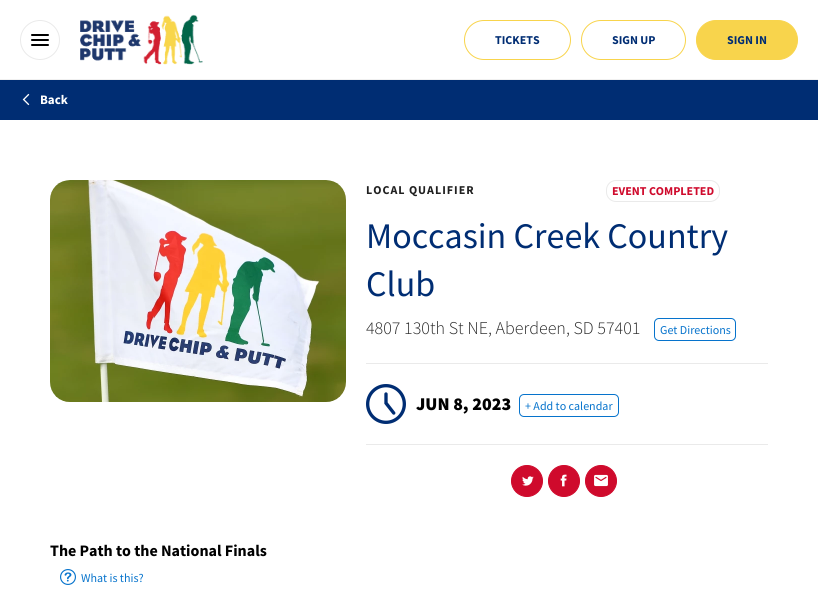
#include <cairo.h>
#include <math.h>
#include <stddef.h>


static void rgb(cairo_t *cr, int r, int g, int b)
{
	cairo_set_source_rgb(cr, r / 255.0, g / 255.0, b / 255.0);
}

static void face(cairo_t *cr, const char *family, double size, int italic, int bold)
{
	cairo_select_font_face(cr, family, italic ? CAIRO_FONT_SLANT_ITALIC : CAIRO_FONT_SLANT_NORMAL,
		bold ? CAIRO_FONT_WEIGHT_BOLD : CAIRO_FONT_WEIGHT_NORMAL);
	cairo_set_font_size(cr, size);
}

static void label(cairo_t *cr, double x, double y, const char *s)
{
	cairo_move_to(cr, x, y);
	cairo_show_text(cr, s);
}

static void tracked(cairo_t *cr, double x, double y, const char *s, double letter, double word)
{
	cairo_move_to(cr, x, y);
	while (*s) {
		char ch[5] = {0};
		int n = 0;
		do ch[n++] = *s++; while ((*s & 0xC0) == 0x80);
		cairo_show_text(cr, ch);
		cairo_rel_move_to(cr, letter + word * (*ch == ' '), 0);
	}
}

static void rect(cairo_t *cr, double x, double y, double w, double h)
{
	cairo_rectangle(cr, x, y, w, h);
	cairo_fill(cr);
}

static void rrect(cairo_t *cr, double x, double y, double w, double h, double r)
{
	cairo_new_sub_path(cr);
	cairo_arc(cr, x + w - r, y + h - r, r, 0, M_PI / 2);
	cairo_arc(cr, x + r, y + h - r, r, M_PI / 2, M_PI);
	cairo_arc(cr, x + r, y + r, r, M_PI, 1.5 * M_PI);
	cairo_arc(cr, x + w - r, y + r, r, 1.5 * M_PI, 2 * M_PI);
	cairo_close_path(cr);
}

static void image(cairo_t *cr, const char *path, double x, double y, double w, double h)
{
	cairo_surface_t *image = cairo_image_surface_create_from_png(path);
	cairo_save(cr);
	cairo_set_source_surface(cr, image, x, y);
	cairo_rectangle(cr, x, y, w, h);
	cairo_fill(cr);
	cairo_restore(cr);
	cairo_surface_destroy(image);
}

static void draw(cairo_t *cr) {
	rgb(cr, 255, 255, 255);
	cairo_paint(cr);
	rgb(cr, 240, 240, 240);
	rect(cr, 0, 79, 818, 1);
	cairo_arc(cr, 40, 40, 19.5, 0, 2 * M_PI);
	rgb(cr, 234, 234, 234);
	cairo_set_line_width(cr, 1);
	cairo_stroke(cr);
	image(cr, "image0.png", 31, 34, 18, 12);
	image(cr, "image1.png", 80, 14, 123, 51);
	rrect(cr, 464.5, 20.5, 106, 39, 19.5);
	rgb(cr, 248, 212, 76);
	cairo_stroke(cr);
	face(cr, "Source Sans Pro", 12, 0, 1);
	rgb(cr, 0, 45, 115);
	label(cr, 495, 44, "TICKETS");
	rrect(cr, 581.5, 20.5, 104, 39, 19.5);
	rgb(cr, 248, 212, 76);
	cairo_stroke(cr);
	rgb(cr, 0, 45, 115);
	label(cr, 612, 44, "SIGN UP");
	rgb(cr, 248, 212, 76);
	rrect(cr, 696.5, 20.5, 101, 39, 19.5);
	cairo_fill_preserve(cr);
	cairo_stroke(cr);
	rgb(cr, 0, 45, 115);
	label(cr, 727, 44, "SIGN IN");
	rect(cr, 0, 80, 818, 40);
	image(cr, "image2.png", 22, 93, 8, 13);
	face(cr, "Source Sans Pro", 13, 0, 1);
	rgb(cr, 255, 255, 255);
	label(cr, 40, 104, "Back");
	image(cr, "image3.png", 50, 180, 296, 222);
	face(cr, "Source Sans Pro", 12, 0, 1);
	rgb(cr, 32, 32, 32);
	tracked(cr, 366, 194, "LOCAL QUALIFIER", 1, 0);
	rrect(cr, 606.5, 180.5, 113, 21, 9.5);
	rgb(cr, 234, 234, 234);
	cairo_stroke(cr);
	rgb(cr, 207, 10, 44);
	label(cr, 612, 195, "EVENT COMPLETED");
	rgb(cr, 234, 234, 234);
	rect(cr, 366, 363, 402, 1);
	face(cr, "Source Sans Pro", 36, 0, 0);
	rgb(cr, 0, 45, 115);
	label(cr, 366, 248, "Moccasin Creek Country");
	label(cr, 366, 296, "Club");
	face(cr, "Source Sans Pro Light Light", 18, 0, 0);
	rgb(cr, 42, 42, 42);
	label(cr, 366, 334, "4807 130th St NE, Aberdeen, SD 57401");
	rrect(cr, 654.5, 318.5, 81, 22, 4.5);
	rgb(cr, 6, 115, 204);
	cairo_stroke(cr);
	face(cr, "Source Sans Pro", 12, 0, 0);
	label(cr, 660, 334, "Get Directions");
	rgb(cr, 234, 234, 234);
	rect(cr, 366, 444, 402, 1);
	image(cr, "image4.png", 366, 384, 40, 40);
	face(cr, "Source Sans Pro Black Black", 18, 0, 0);
	rgb(cr, 0, 0, 0);
	label(cr, 416, 410, "JUN 8, 2023");
	rrect(cr, 519.5, 394.5, 99, 22, 4.5);
	rgb(cr, 6, 115, 204);
	cairo_stroke(cr);
	face(cr, "Source Sans Pro", 12, 0, 0);
	label(cr, 525, 410, "+ Add to calendar");
	rgb(cr, 207, 10, 44);
	cairo_new_path(cr);
	cairo_arc(cr, 527, 481, 15.5, 0, 2 * M_PI);
	cairo_fill_preserve(cr);
	cairo_stroke(cr);
	image(cr, "image5.png", 522, 476, 12, 10);
	cairo_arc(cr, 564, 481, 15.5, 0, 2 * M_PI);
	cairo_fill_preserve(cr);
	cairo_stroke(cr);
	image(cr, "image6.png", 560, 474, 7, 13);
	cairo_arc(cr, 601, 481, 15.5, 0, 2 * M_PI);
	cairo_fill_preserve(cr);
	cairo_stroke(cr);
	image(cr, "image7.png", 594, 474, 14, 13);
	face(cr, "Source Sans Pro", 16, 0, 1);
	rgb(cr, 0, 0, 0);
	label(cr, 50, 556, "The Path to the National Finals");
	image(cr, "image8.png", 60, 569, 16, 16);
	face(cr, "Source Sans Pro", 12, 0, 0);
	rgb(cr, 6, 115, 204);
	label(cr, 81, 582, "What is this?");
}

int main(void) {
	cairo_surface_t *surface = cairo_image_surface_create(CAIRO_FORMAT_RGB24, 818, 594);
	cairo_t *cr = cairo_create(surface);
	cairo_font_options_t *options = cairo_font_options_create();
	cairo_font_options_set_hint_metrics(options, CAIRO_HINT_METRICS_OFF);
	cairo_font_options_set_hint_style(options, CAIRO_HINT_STYLE_NONE);
	cairo_set_font_options(cr, options);
	cairo_set_miter_limit(cr, 4);
	draw(cr);
	cairo_surface_write_to_png(surface, "render.png");
	cairo_font_options_destroy(options);
	cairo_destroy(cr);
	cairo_surface_destroy(surface);
	return 0;
}
